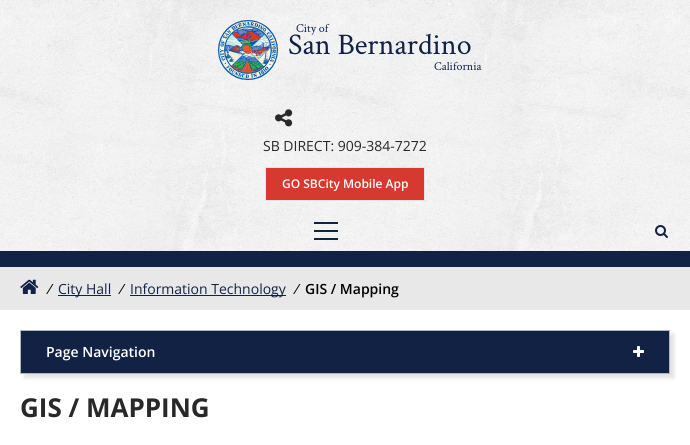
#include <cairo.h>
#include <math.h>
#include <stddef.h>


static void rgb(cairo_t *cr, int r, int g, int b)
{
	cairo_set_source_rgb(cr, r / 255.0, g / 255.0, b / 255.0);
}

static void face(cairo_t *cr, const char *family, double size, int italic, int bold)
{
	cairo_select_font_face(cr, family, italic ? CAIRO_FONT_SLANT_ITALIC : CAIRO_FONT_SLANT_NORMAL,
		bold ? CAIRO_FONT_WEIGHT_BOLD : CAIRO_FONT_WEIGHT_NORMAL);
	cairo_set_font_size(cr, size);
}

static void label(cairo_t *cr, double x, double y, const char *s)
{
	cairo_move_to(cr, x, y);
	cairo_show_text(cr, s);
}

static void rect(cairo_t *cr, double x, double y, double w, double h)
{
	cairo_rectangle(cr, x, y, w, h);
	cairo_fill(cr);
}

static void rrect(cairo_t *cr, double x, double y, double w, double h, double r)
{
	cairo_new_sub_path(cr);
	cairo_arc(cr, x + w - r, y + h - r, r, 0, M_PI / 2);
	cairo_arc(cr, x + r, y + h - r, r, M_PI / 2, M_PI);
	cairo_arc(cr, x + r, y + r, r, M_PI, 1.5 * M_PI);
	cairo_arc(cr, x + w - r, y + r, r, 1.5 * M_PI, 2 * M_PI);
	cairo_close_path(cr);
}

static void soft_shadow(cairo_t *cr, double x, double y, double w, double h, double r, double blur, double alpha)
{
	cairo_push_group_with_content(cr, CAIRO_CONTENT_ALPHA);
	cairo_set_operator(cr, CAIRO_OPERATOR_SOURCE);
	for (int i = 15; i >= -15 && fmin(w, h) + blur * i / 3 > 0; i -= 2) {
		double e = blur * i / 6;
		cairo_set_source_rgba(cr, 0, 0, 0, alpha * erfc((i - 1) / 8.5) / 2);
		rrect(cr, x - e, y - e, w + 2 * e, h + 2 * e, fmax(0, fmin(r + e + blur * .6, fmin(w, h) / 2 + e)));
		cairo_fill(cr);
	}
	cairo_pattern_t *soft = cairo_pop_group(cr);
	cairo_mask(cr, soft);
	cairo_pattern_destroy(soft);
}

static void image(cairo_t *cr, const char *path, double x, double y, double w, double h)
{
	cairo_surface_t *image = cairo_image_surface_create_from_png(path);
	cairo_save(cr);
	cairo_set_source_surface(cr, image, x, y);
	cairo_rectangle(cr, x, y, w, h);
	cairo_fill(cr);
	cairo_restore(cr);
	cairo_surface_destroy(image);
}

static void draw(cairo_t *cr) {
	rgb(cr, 255, 255, 255);
	cairo_paint(cr);
	image(cr, "image0.png", 0, 0, 690, 251);
	rgb(cr, 17, 34, 68);
	rect(cr, 0, 251, 690, 16);
	image(cr, "image1.png", 218, 20, 60, 60);
	face(cr, "Crimson Text", 12, 0, 0);
	label(cr, 296, 32, "City of");
	face(cr, "Crimson Text", 30, 0, 0);
	label(cr, 288, 54, "San Bernardino");
	face(cr, "Crimson Text", 12, 0, 0);
	label(cr, 434, 70, "California");
	rgb(cr, 238, 238, 238);
	rect(cr, 304, 100, 1, 35);
	image(cr, "image2.png", 275, 109, 18, 18);
	face(cr, "Open Sans", 14, 0, 0);
	rgb(cr, 40, 40, 40);
	label(cr, 263, 151, "SB DIRECT: 909-384-7272");
	rgb(cr, 213, 57, 48);
	cairo_rectangle(cr, 265.5, 167.5, 159, 33);
	cairo_fill_preserve(cr);
	rgb(cr, 226, 226, 226);
	cairo_set_line_width(cr, 1);
	cairo_stroke(cr);
	face(cr, "Open Sans SemiBold", 12, 0, 0);
	rgb(cr, 255, 255, 255);
	label(cr, 282, 188, "GO SBCity Mobile App");
	rgb(cr, 17, 34, 68);
	rect(cr, 314, 230, 24, 2);
	rect(cr, 314, 222, 24, 2);
	rect(cr, 314, 238, 24, 2);
	image(cr, "image3.png", 655, 225, 13, 13);
	rgb(cr, 232, 232, 232);
	rect(cr, 0, 267, 690, 43);
	image(cr, "image4.png", 20, 279, 19, 15);
	face(cr, "Open Sans", 14, 1, 0);
	rgb(cr, 0, 0, 0);
	label(cr, 46, 294, "/");
	rgb(cr, 17, 34, 68);
	rect(cr, 58, 295, 53, 1);
	face(cr, "Open Sans", 14, 0, 0);
	label(cr, 58, 294, "City Hall");
	face(cr, "Open Sans", 14, 1, 0);
	rgb(cr, 0, 0, 0);
	label(cr, 118, 294, "/");
	rgb(cr, 17, 34, 68);
	rect(cr, 130, 295, 156, 1);
	face(cr, "Open Sans", 14, 0, 0);
	label(cr, 130, 294, "Information Technology");
	face(cr, "Open Sans", 14, 1, 0);
	rgb(cr, 0, 0, 0);
	label(cr, 293, 294, "/");
	face(cr, "Open Sans SemiBold", 14, 0, 0);
	label(cr, 305, 294, "GIS / Mapping");
	rgb(cr, 0, 0, 0);
	soft_shadow(cr, 24, 334, 650, 44, 0, 2, 0.12);
	cairo_rectangle(cr, 20.5, 330.5, 649, 43);
	rgb(cr, 183, 183, 183);
	cairo_stroke(cr);
	rgb(cr, 17, 34, 68);
	rect(cr, 21, 331, 648, 42);
	rgb(cr, 255, 255, 255);
	label(cr, 46, 357, "Page Navigation");
	image(cr, "image5.png", 633, 346, 11, 11);
	face(cr, "Open Sans", 26, 0, 1);
	rgb(cr, 40, 40, 40);
	label(cr, 20, 417, "GIS / MAPPING");
}

int main(void) {
	cairo_surface_t *surface = cairo_image_surface_create(CAIRO_FORMAT_RGB24, 690, 445);
	cairo_t *cr = cairo_create(surface);
	cairo_font_options_t *options = cairo_font_options_create();
	cairo_font_options_set_hint_metrics(options, CAIRO_HINT_METRICS_OFF);
	cairo_font_options_set_hint_style(options, CAIRO_HINT_STYLE_NONE);
	cairo_set_font_options(cr, options);
	cairo_set_miter_limit(cr, 4);
	draw(cr);
	cairo_surface_write_to_png(surface, "render.png");
	cairo_font_options_destroy(options);
	cairo_destroy(cr);
	cairo_surface_destroy(surface);
	return 0;
}
